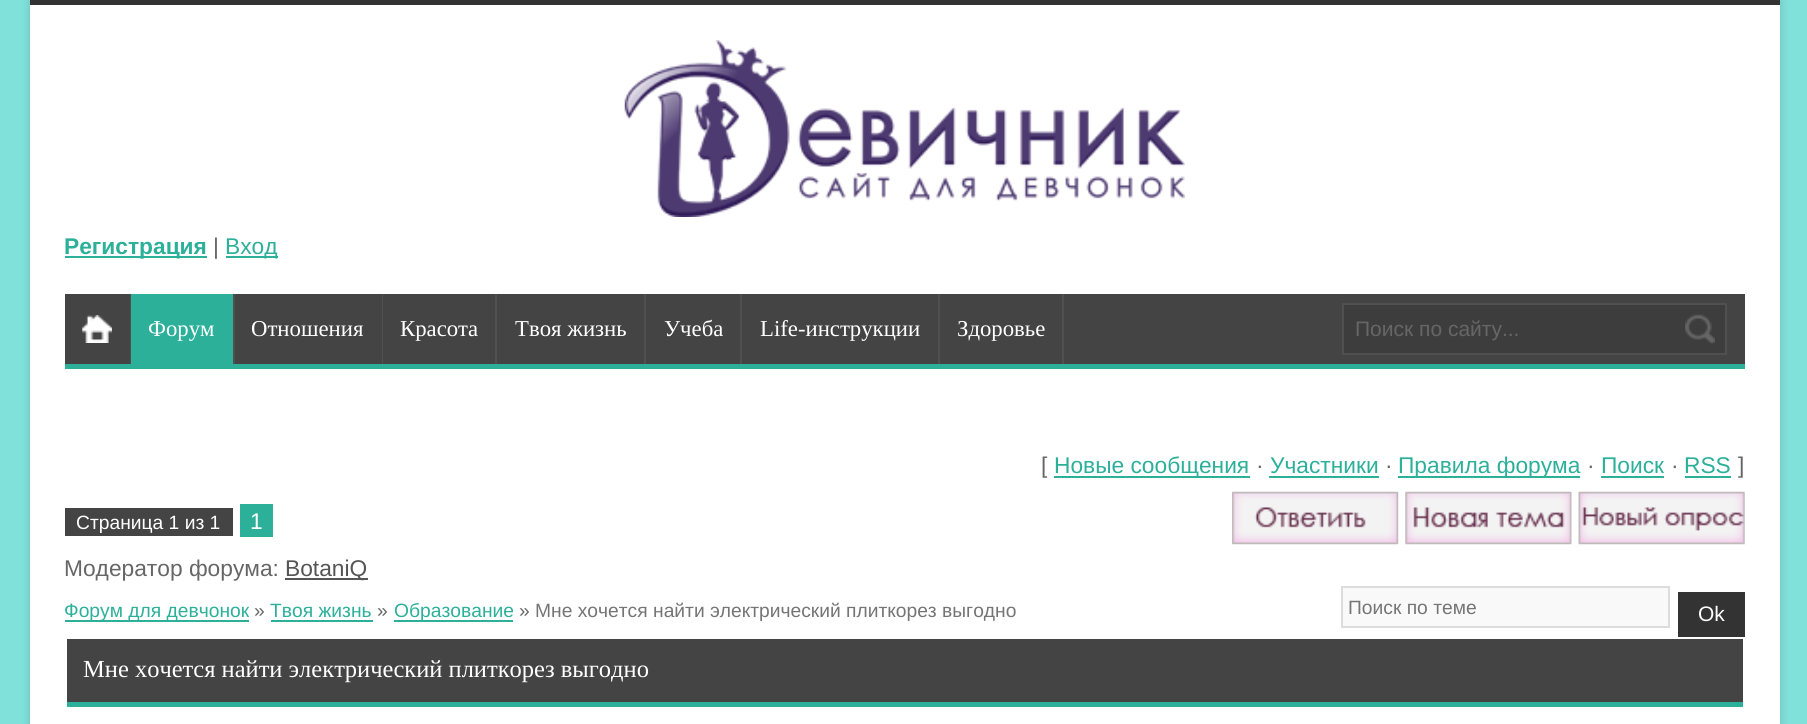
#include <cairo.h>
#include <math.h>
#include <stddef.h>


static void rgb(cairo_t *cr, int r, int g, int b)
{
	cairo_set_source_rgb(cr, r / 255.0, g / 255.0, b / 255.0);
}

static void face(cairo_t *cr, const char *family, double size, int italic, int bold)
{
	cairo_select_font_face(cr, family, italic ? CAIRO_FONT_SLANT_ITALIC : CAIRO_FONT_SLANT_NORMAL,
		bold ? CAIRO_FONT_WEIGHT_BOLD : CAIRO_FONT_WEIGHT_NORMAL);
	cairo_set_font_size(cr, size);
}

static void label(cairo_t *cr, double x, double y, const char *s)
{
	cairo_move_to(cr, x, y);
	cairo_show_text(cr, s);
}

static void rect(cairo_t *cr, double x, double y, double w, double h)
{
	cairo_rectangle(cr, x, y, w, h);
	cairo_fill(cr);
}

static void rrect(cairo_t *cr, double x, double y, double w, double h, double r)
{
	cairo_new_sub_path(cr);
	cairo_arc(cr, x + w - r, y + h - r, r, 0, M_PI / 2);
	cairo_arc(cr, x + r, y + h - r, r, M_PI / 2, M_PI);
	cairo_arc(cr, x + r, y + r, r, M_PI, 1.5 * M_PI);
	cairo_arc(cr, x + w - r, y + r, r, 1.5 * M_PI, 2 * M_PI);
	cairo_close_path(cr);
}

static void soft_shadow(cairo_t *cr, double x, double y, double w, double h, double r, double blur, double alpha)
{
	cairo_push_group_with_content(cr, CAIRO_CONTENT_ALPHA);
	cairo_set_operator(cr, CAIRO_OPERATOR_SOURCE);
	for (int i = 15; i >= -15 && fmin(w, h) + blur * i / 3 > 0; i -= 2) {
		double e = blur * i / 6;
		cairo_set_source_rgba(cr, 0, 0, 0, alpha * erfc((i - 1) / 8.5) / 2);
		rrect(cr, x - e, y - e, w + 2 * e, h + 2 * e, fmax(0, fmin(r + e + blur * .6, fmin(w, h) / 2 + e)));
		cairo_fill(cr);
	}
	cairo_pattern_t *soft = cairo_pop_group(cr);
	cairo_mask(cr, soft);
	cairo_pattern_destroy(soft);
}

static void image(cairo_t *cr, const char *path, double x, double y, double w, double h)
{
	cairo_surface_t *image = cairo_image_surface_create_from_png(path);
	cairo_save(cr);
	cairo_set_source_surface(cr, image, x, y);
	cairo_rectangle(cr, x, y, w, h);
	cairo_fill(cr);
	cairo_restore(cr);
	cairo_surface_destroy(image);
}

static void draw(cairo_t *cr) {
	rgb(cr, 128, 224, 218);
	cairo_paint(cr);
	rgb(cr, 0, 0, 0);
	soft_shadow(cr, 30, 0, 1750, 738, 0, 4.5, 0.15);
	rgb(cr, 255, 255, 255);
	rect(cr, 30, 5, 1750, 719);
	rgb(cr, 51, 51, 51);
	rect(cr, 30, 0, 1750, 5);
	image(cr, "image0.png", 624, 40, 561, 177);
	rgb(cr, 44, 176, 154);
	rect(cr, 65, 256, 142, 2);
	face(cr, "Liberation Sans", 22.75, 0, 1);
	label(cr, 64, 254, "Регистрация");
	face(cr, "Liberation Sans", 22.75, 0, 0);
	rgb(cr, 102, 102, 102);
	label(cr, 213, 254, "|");
	rgb(cr, 44, 176, 154);
	rect(cr, 226, 256, 52, 2);
	label(cr, 225, 254, "Вход");
	rgb(cr, 68, 68, 68);
	rect(cr, 65, 294, 1680, 70);
	rgb(cr, 44, 176, 154);
	rect(cr, 65, 364, 1680, 5);
	image(cr, "image1.png", 82, 315, 30, 28);
	rgb(cr, 80, 80, 80);
	rect(cr, 130, 294, 1, 70);
	rgb(cr, 44, 176, 154);
	rect(cr, 131, 294, 102, 70);
	rgb(cr, 80, 80, 80);
	rect(cr, 233, 294, 2, 70);
	face(cr, "Liberation Serif", 22.75, 0, 0);
	rgb(cr, 255, 255, 255);
	label(cr, 148, 336, "Форум");
	rgb(cr, 80, 80, 80);
	rect(cr, 382, 294, 1, 70);
	rgb(cr, 255, 255, 255);
	label(cr, 251, 336, "Отношения");
	rgb(cr, 80, 80, 80);
	rect(cr, 495, 294, 2, 70);
	rgb(cr, 255, 255, 255);
	label(cr, 400, 336, "Красота");
	rgb(cr, 80, 80, 80);
	rect(cr, 644, 294, 2, 70);
	rgb(cr, 255, 255, 255);
	label(cr, 515, 336, "Твоя жизнь");
	rgb(cr, 80, 80, 80);
	rect(cr, 740, 294, 2, 70);
	rgb(cr, 255, 255, 255);
	label(cr, 664, 336, "Учеба");
	rgb(cr, 80, 80, 80);
	rect(cr, 938, 294, 2, 70);
	rgb(cr, 255, 255, 255);
	label(cr, 760, 336, "Life-инструкции");
	rgb(cr, 80, 80, 80);
	rect(cr, 1062, 294, 2, 70);
	rgb(cr, 255, 255, 255);
	label(cr, 957, 336, "Здоровье");
	rgb(cr, 61, 61, 61);
	cairo_rectangle(cr, 1343, 304, 383, 50);
	cairo_fill_preserve(cr);
	rgb(cr, 80, 80, 80);
	cairo_stroke(cr);
	face(cr, "Liberation Sans", 21, 0, 0);
	rgb(cr, 102, 102, 102);
	label(cr, 1355, 336, "Поиск по сайту...");
	image(cr, "image2.png", 1685, 314, 30, 30);
	face(cr, "Liberation Sans", 22.75, 0, 0);
	label(cr, 1041, 473, "[");
	rgb(cr, 44, 176, 154);
	rect(cr, 1054, 476, 196, 2);
	label(cr, 1054, 473, "Новые сообщения");
	rgb(cr, 102, 102, 102);
	label(cr, 1256, 473, "·");
	rgb(cr, 44, 176, 154);
	label(cr, 1270, 473, "Участники");
	rect(cr, 1269, 476, 110, 2);
	rgb(cr, 102, 102, 102);
	label(cr, 1385, 473, "·");
	rgb(cr, 44, 176, 154);
	rect(cr, 1398, 476, 182, 2);
	label(cr, 1398, 473, "Правила форума");
	rgb(cr, 102, 102, 102);
	label(cr, 1587, 473, "·");
	rgb(cr, 44, 176, 154);
	label(cr, 1601, 473, "Поиск");
	rect(cr, 1601, 476, 63, 2);
	rgb(cr, 102, 102, 102);
	label(cr, 1671, 473, "·");
	rgb(cr, 44, 176, 154);
	label(cr, 1684, 473, "RSS");
	rect(cr, 1685, 476, 46, 2);
	rgb(cr, 102, 102, 102);
	label(cr, 1738, 473, "]");
	rgb(cr, 68, 68, 68);
	rect(cr, 65, 508, 168, 28);
	face(cr, "Liberation Sans", 19.25, 0, 0);
	rgb(cr, 255, 255, 255);
	label(cr, 76, 529, "Страница 1 из 1");
	rgb(cr, 44, 176, 154);
	rect(cr, 240, 504, 33, 33);
	face(cr, "Liberation Sans", 22.75, 0, 0);
	rgb(cr, 255, 255, 255);
	label(cr, 250, 529, "1");
	image(cr, "image3.png", 1232, 491, 167, 54);
	image(cr, "image4.png", 1405, 491, 167, 54);
	image(cr, "image5.png", 1578, 491, 167, 54);
	rgb(cr, 102, 102, 102);
	label(cr, 64, 576, "Модератор форума:");
	rgb(cr, 85, 85, 85);
	rect(cr, 285, 578, 83, 2);
	label(cr, 285, 576, "BotaniQ");
	rgb(cr, 44, 176, 154);
	rect(cr, 65, 620, 184, 2);
	face(cr, "Liberation Sans", 19.25, 0, 0);
	label(cr, 64, 617, "Форум для девчонок");
	rgb(cr, 102, 102, 102);
	label(cr, 254, 617, "»");
	rgb(cr, 44, 176, 154);
	label(cr, 270, 617, "Твоя жизнь");
	rect(cr, 271, 620, 102, 2);
	rgb(cr, 102, 102, 102);
	label(cr, 377, 617, "»");
	rgb(cr, 44, 176, 154);
	rect(cr, 394, 620, 119, 2);
	label(cr, 394, 617, "Образование");
	rgb(cr, 102, 102, 102);
	label(cr, 519, 617, "»");
	rgb(cr, 117, 117, 117);
	label(cr, 535, 617, "Мне хочется найти электрический плиткорез выгодно");
	rgb(cr, 249, 249, 249);
	cairo_rectangle(cr, 1342, 587, 327, 40);
	cairo_fill_preserve(cr);
	rgb(cr, 221, 221, 221);
	cairo_stroke(cr);
	rgb(cr, 117, 117, 117);
	label(cr, 1348, 614, "Поиск по теме");
	rgb(cr, 51, 51, 51);
	rect(cr, 1678, 592, 67, 45);
	face(cr, "Liberation Sans", 21, 0, 0);
	rgb(cr, 255, 255, 255);
	label(cr, 1698, 621, "Ok");
	rgb(cr, 68, 68, 68);
	rect(cr, 67, 639, 1676, 63);
	rgb(cr, 44, 176, 154);
	rect(cr, 67, 702, 1676, 5);
	face(cr, "Liberation Serif", 24.5, 0, 0);
	rgb(cr, 255, 255, 255);
	label(cr, 83, 677, "Мне хочется найти электрический плиткорез выгодно");
}

int main(void) {
	cairo_surface_t *surface = cairo_image_surface_create(CAIRO_FORMAT_RGB24, 1807, 724);
	cairo_t *cr = cairo_create(surface);
	cairo_font_options_t *options = cairo_font_options_create();
	cairo_font_options_set_hint_metrics(options, CAIRO_HINT_METRICS_OFF);
	cairo_font_options_set_hint_style(options, CAIRO_HINT_STYLE_NONE);
	cairo_set_font_options(cr, options);
	cairo_set_miter_limit(cr, 4);
	draw(cr);
	cairo_surface_write_to_png(surface, "render.png");
	cairo_font_options_destroy(options);
	cairo_destroy(cr);
	cairo_surface_destroy(surface);
	return 0;
}
